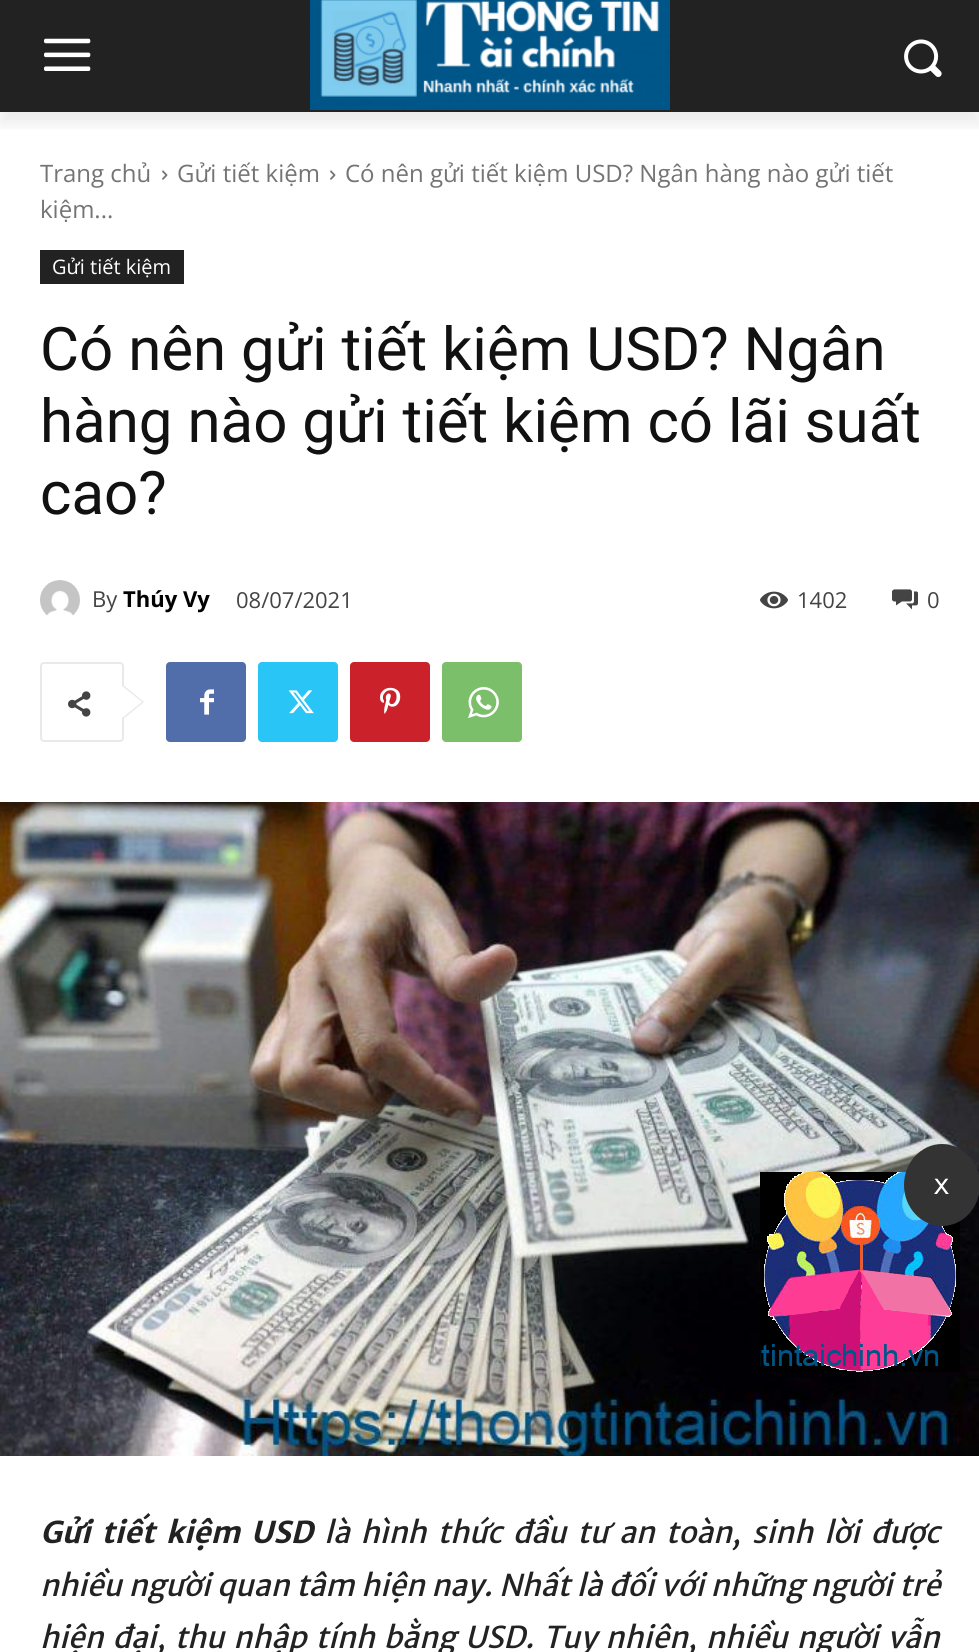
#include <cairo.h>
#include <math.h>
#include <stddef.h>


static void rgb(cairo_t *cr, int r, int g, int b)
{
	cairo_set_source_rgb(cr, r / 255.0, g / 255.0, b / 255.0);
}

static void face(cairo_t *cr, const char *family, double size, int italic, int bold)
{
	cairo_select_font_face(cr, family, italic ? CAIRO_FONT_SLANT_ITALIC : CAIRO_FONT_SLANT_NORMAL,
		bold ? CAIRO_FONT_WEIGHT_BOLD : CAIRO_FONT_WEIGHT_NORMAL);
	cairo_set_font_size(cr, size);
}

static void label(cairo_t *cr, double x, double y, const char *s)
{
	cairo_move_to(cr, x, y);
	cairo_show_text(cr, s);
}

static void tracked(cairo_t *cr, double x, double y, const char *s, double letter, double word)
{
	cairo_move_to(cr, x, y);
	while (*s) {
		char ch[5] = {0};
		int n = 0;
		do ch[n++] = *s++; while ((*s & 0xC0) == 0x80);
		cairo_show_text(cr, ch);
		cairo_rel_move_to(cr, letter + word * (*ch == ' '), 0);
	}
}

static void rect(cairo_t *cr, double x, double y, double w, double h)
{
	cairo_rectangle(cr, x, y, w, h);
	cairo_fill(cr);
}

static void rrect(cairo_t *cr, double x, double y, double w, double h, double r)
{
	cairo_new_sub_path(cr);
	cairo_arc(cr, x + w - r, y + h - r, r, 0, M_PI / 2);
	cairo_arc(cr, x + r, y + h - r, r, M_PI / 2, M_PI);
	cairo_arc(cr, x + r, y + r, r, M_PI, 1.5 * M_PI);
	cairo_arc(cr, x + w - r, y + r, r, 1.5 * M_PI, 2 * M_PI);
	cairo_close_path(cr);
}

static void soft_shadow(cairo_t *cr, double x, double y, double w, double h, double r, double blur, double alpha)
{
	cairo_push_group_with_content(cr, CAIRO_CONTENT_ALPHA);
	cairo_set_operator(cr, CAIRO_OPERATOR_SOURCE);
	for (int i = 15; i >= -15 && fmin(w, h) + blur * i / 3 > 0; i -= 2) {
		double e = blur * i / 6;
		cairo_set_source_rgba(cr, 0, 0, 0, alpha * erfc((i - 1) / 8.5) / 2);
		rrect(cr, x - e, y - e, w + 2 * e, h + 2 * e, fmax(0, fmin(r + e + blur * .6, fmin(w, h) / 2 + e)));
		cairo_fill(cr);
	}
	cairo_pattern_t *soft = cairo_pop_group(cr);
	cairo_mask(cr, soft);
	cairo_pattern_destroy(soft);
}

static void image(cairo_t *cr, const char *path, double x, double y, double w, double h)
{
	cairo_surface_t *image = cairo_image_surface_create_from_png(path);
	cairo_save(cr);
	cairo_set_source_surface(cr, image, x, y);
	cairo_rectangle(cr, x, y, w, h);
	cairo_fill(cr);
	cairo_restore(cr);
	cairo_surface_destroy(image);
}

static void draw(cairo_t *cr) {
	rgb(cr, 255, 255, 255);
	cairo_paint(cr);
	rgb(cr, 34, 34, 34);
	rect(cr, 0, 0, 979, 112);
	image(cr, "image0.png", 44, 38, 47, 33);
	image(cr, "image1.png", 310, 0, 360, 110);
	image(cr, "image2.png", 904, 39, 38, 38);
	cairo_save(cr);
	cairo_rectangle(cr, 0, 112, 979, 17);
	cairo_clip(cr);
	rgb(cr, 0, 0, 0);
	soft_shadow(cr, 0, 12, 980, 112, 0, 8, 0.08);
	cairo_restore(cr);
	face(cr, "Open Sans", 24, 0, 0);
	rgb(cr, 116, 116, 116);
	label(cr, 40, 182, "Trang chủ");
	image(cr, "image3.png", 162, 170, 6, 10);
	label(cr, 177, 182, "Gửi tiết kiệm");
	image(cr, "image3.png", 330, 170, 6, 10);
	label(cr, 345, 182, "Có nên gửi tiết kiệm USD? Ngân hàng nào gửi tiết");
	label(cr, 40, 218, "kiệm...");
	rgb(cr, 34, 34, 34);
	rect(cr, 40, 250, 144, 34);
	face(cr, "Open Sans", 20, 0, 0);
	rgb(cr, 255, 255, 255);
	label(cr, 52, 274, "Gửi tiết kiệm");
	face(cr, "Roboto", 60, 0, 0);
	rgb(cr, 17, 17, 17);
	label(cr, 40, 370, "Có nên gửi tiết kiệm USD? Ngân");
	label(cr, 40, 442, "hàng nào gửi tiết kiệm có lãi suất");
	label(cr, 40, 514, "cao?");
	image(cr, "image4.png", 40, 580, 40, 36);
	face(cr, "Open Sans", 22, 0, 0);
	rgb(cr, 68, 68, 68);
	label(cr, 92, 607, "By");
	face(cr, "Open Sans", 22, 0, 1);
	rgb(cr, 0, 0, 0);
	label(cr, 123, 607, "Thúy Vy");
	face(cr, "Open Sans", 22, 0, 0);
	rgb(cr, 68, 68, 68);
	label(cr, 236, 608, "08/07/2021");
	image(cr, "image5.png", 760, 591, 28, 18);
	label(cr, 797, 608, "1402");
	image(cr, "image6.png", 892, 589, 26, 21);
	label(cr, 927, 608, "0");
	rrect(cr, 41, 663, 82, 78, 3);
	rgb(cr, 233, 233, 233);
	cairo_stroke(cr);
	cairo_new_path(cr);
	cairo_move_to(cr, 122, 720);
	cairo_line_to(cr, 122, 684);
	cairo_line_to(cr, 144, 702);
	cairo_close_path(cr);
	cairo_fill(cr);
	image(cr, "image7.png", 68, 691, 23, 26);
	rgb(cr, 255, 255, 255);
	cairo_new_path(cr);
	cairo_move_to(cr, 122, 718);
	cairo_line_to(cr, 122, 686);
	cairo_line_to(cr, 142, 702);
	cairo_close_path(cr);
	cairo_fill(cr);
	rgb(cr, 81, 110, 171);
	rrect(cr, 166, 662, 80, 80, 4);
	cairo_fill(cr);
	image(cr, "image8.png", 200, 689, 14, 26);
	rgb(cr, 41, 197, 246);
	rrect(cr, 258, 662, 80, 80, 4);
	cairo_fill(cr);
	image(cr, "image9.png", 288, 690, 26, 24);
	rgb(cr, 202, 33, 42);
	rrect(cr, 350, 662, 80, 80, 4);
	cairo_fill(cr);
	image(cr, "image10.png", 380, 687, 21, 27);
	rgb(cr, 123, 191, 106);
	rrect(cr, 442, 662, 80, 80, 4);
	cairo_fill(cr);
	image(cr, "image11.png", 468, 687, 31, 31);
	image(cr, "image12.png", 0, 802, 979, 654);
	face(cr, "Merriweather Sans", 30, 1, 1);
	rgb(cr, 34, 34, 34);
	tracked(cr, 40, 1543, "Gửi tiết kiệm USD", 0, 5.5);
	face(cr, "Merriweather Sans", 30, 1, 0);
	tracked(cr, 324, 1543, "là hình thức đầu tư an toàn, sinh lời được", 0, 5.5);
	tracked(cr, 40, 1596, "nhiều người quan tâm hiện nay. Nhất là đối với những người trẻ", 0, 1.2);
	tracked(cr, 40, 1648, "hiện đại, thu nhập tính bằng USD. Tuy nhiên, nhiều người vẫn", 0, 3.5);
	image(cr, "image13.png", 760, 1172, 200, 200);
	rgb(cr, 51, 51, 51);
	cairo_new_path(cr);
	cairo_move_to(cr, 942, 1144);
	cairo_curve_to(cr, 963, 1144, 980, 1162.5, 980, 1185);
	cairo_curve_to(cr, 980, 1207.5, 963, 1226, 942, 1226);
	cairo_curve_to(cr, 921, 1226, 904, 1207.5, 904, 1185);
	cairo_curve_to(cr, 904, 1162.5, 921, 1144, 942, 1144);
	cairo_close_path(cr);
	cairo_fill(cr);
	face(cr, "DejaVu Sans Mono", 28, 0, 0);
	rgb(cr, 255, 255, 255);
	label(cr, 933, 1194, "x");
}

int main(void) {
	cairo_surface_t *surface = cairo_image_surface_create(CAIRO_FORMAT_RGB24, 979, 1652);
	cairo_t *cr = cairo_create(surface);
	cairo_font_options_t *options = cairo_font_options_create();
	cairo_font_options_set_hint_metrics(options, CAIRO_HINT_METRICS_OFF);
	cairo_font_options_set_hint_style(options, CAIRO_HINT_STYLE_NONE);
	cairo_set_font_options(cr, options);
	cairo_set_miter_limit(cr, 4);
	draw(cr);
	cairo_surface_write_to_png(surface, "render.png");
	cairo_font_options_destroy(options);
	cairo_destroy(cr);
	cairo_surface_destroy(surface);
	return 0;
}
